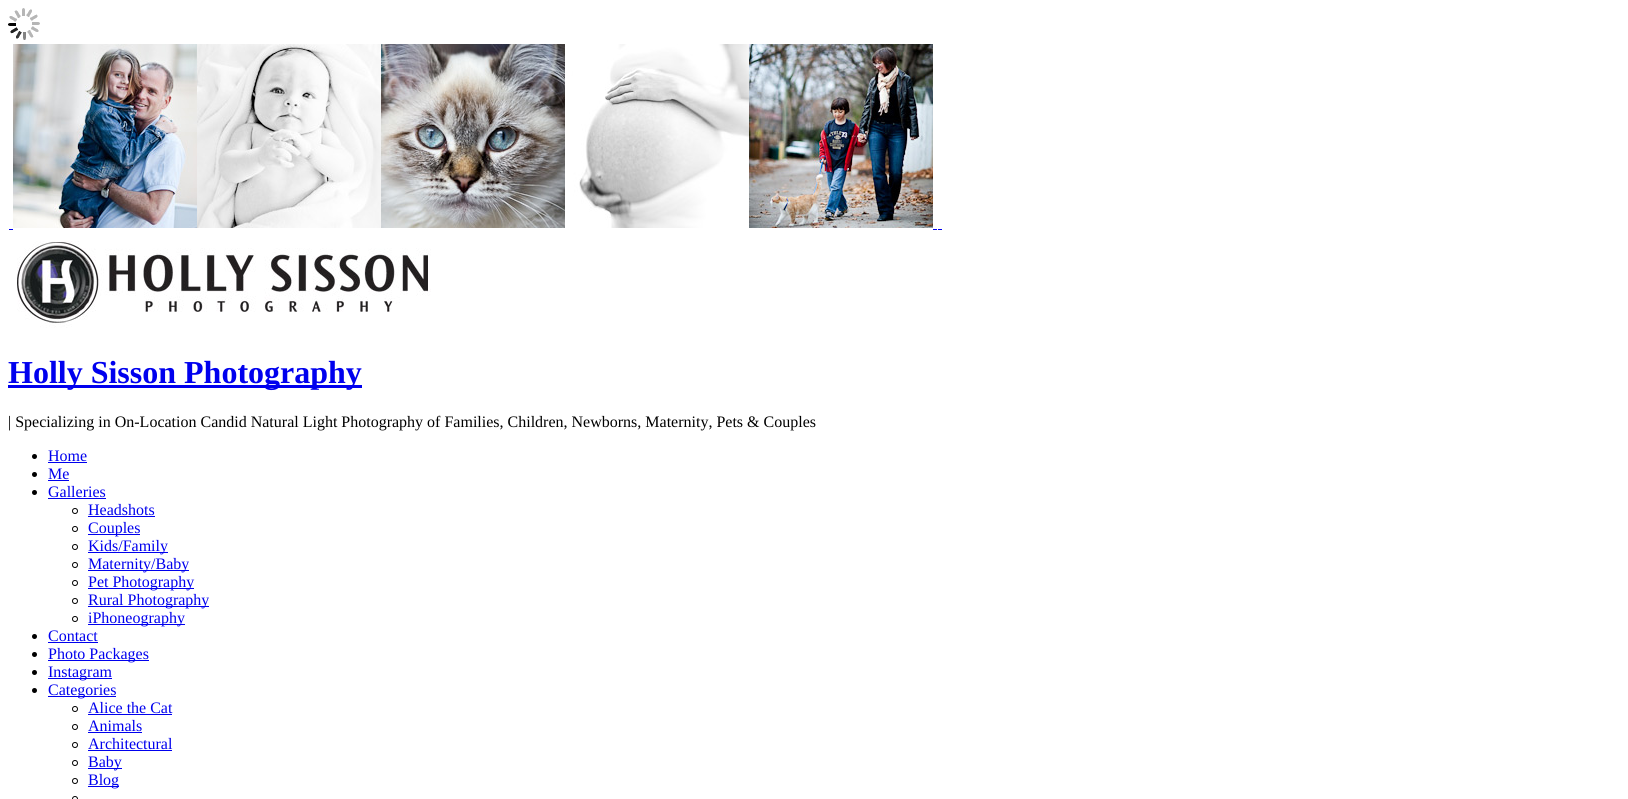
#include <cairo.h>
#include <math.h>
#include <stddef.h>


static void rgb(cairo_t *cr, int r, int g, int b)
{
	cairo_set_source_rgb(cr, r / 255.0, g / 255.0, b / 255.0);
}

static void face(cairo_t *cr, const char *family, double size, int italic, int bold)
{
	cairo_select_font_face(cr, family, italic ? CAIRO_FONT_SLANT_ITALIC : CAIRO_FONT_SLANT_NORMAL,
		bold ? CAIRO_FONT_WEIGHT_BOLD : CAIRO_FONT_WEIGHT_NORMAL);
	cairo_set_font_size(cr, size);
}

static void label(cairo_t *cr, double x, double y, const char *s)
{
	cairo_move_to(cr, x, y);
	cairo_show_text(cr, s);
}

static void rect(cairo_t *cr, double x, double y, double w, double h)
{
	cairo_rectangle(cr, x, y, w, h);
	cairo_fill(cr);
}

static void image(cairo_t *cr, const char *path, double x, double y, double w, double h)
{
	cairo_surface_t *image = cairo_image_surface_create_from_png(path);
	cairo_save(cr);
	cairo_set_source_surface(cr, image, x, y);
	cairo_rectangle(cr, x, y, w, h);
	cairo_fill(cr);
	cairo_restore(cr);
	cairo_surface_destroy(image);
}

static void draw(cairo_t *cr) {
	rgb(cr, 255, 255, 255);
	cairo_paint(cr);
	image(cr, "image0.png", 8, 8, 32, 32);
	image(cr, "image1.png", 13, 44, 920, 184);
	rgb(cr, 0, 0, 238);
	rect(cr, 9, 229, 4, 1);
	rect(cr, 933, 229, 4, 1);
	rect(cr, 938, 229, 4, 1);
	image(cr, "image2.png", 17, 241, 414, 87);
	rect(cr, 8, 385, 354, 3);
	face(cr, "Liberation Serif", 32, 0, 1);
	label(cr, 8, 383, "Holly Sisson Photography");
	face(cr, "Liberation Serif", 16, 0, 0);
	rgb(cr, 0, 0, 0);
	label(cr, 8, 427, "| Specializing in On-Location Candid Natural Light Photography of Families, Children, Newborns, Maternity, Pets & Couples");
	cairo_new_path(cr);
	cairo_arc(cr, 34.5, 456.5, 2.5, 0, 2 * M_PI);
	cairo_fill(cr);
	rgb(cr, 0, 0, 238);
	label(cr, 48, 461, "Home");
	rect(cr, 48, 462, 39, 1);
	rgb(cr, 0, 0, 0);
	cairo_new_path(cr);
	cairo_arc(cr, 34.5, 474.5, 2.5, 0, 2 * M_PI);
	cairo_fill(cr);
	rgb(cr, 0, 0, 238);
	label(cr, 48, 479, "Me");
	rect(cr, 48, 480, 21, 1);
	rgb(cr, 0, 0, 0);
	cairo_new_path(cr);
	cairo_arc(cr, 34.5, 492.5, 2.5, 0, 2 * M_PI);
	cairo_fill(cr);
	rgb(cr, 0, 0, 238);
	label(cr, 48, 497, "Galleries");
	rect(cr, 48, 498, 58, 1);
	cairo_new_path(cr);
	cairo_arc(cr, 75, 511, 2.5, 0, 2 * M_PI);
	rgb(cr, 0, 0, 0);
	cairo_set_line_width(cr, 1);
	cairo_stroke(cr);
	rgb(cr, 0, 0, 238);
	label(cr, 88, 515, "Headshots");
	rect(cr, 88, 516, 67, 1);
	cairo_new_path(cr);
	cairo_arc(cr, 75, 529, 2.5, 0, 2 * M_PI);
	rgb(cr, 0, 0, 0);
	cairo_stroke(cr);
	rgb(cr, 0, 0, 238);
	rect(cr, 88, 534, 52, 1);
	label(cr, 88, 533, "Couples");
	cairo_new_path(cr);
	cairo_arc(cr, 75, 547, 2.5, 0, 2 * M_PI);
	rgb(cr, 0, 0, 0);
	cairo_stroke(cr);
	rgb(cr, 0, 0, 238);
	rect(cr, 88, 552, 80, 1);
	label(cr, 88, 551, "Kids/Family");
	cairo_new_path(cr);
	cairo_arc(cr, 75, 565, 2.5, 0, 2 * M_PI);
	rgb(cr, 0, 0, 0);
	cairo_stroke(cr);
	rgb(cr, 0, 0, 238);
	rect(cr, 88, 570, 101, 1);
	label(cr, 88, 569, "Maternity/Baby");
	cairo_new_path(cr);
	cairo_arc(cr, 75, 583, 2.5, 0, 2 * M_PI);
	rgb(cr, 0, 0, 0);
	cairo_stroke(cr);
	rgb(cr, 0, 0, 238);
	rect(cr, 88, 588, 106, 1);
	label(cr, 88, 587, "Pet Photography");
	cairo_new_path(cr);
	cairo_arc(cr, 75, 601, 2.5, 0, 2 * M_PI);
	rgb(cr, 0, 0, 0);
	cairo_stroke(cr);
	rgb(cr, 0, 0, 238);
	rect(cr, 88, 606, 121, 1);
	label(cr, 88, 605, "Rural Photography");
	cairo_new_path(cr);
	cairo_arc(cr, 75, 619, 2.5, 0, 2 * M_PI);
	rgb(cr, 0, 0, 0);
	cairo_stroke(cr);
	rgb(cr, 0, 0, 238);
	rect(cr, 88, 624, 97, 1);
	label(cr, 88, 623, "iPhoneography");
	rgb(cr, 0, 0, 0);
	cairo_new_path(cr);
	cairo_arc(cr, 34.5, 636.5, 2.5, 0, 2 * M_PI);
	cairo_fill(cr);
	rgb(cr, 0, 0, 238);
	label(cr, 48, 641, "Contact");
	rect(cr, 48, 642, 50, 1);
	rgb(cr, 0, 0, 0);
	cairo_new_path(cr);
	cairo_arc(cr, 34.5, 654.5, 2.5, 0, 2 * M_PI);
	cairo_fill(cr);
	rgb(cr, 0, 0, 238);
	rect(cr, 48, 660, 101, 1);
	label(cr, 48, 659, "Photo Packages");
	rgb(cr, 0, 0, 0);
	cairo_new_path(cr);
	cairo_arc(cr, 34.5, 672.5, 2.5, 0, 2 * M_PI);
	cairo_fill(cr);
	rgb(cr, 0, 0, 238);
	rect(cr, 48, 678, 64, 1);
	label(cr, 48, 677, "Instagram");
	rgb(cr, 0, 0, 0);
	cairo_new_path(cr);
	cairo_arc(cr, 34.5, 690.5, 2.5, 0, 2 * M_PI);
	cairo_fill(cr);
	rgb(cr, 0, 0, 238);
	rect(cr, 48, 696, 68, 1);
	label(cr, 48, 695, "Categories");
	cairo_new_path(cr);
	cairo_arc(cr, 75, 709, 2.5, 0, 2 * M_PI);
	rgb(cr, 0, 0, 0);
	cairo_stroke(cr);
	rgb(cr, 0, 0, 238);
	label(cr, 88, 713, "Alice the Cat");
	rect(cr, 88, 714, 84, 1);
	cairo_new_path(cr);
	cairo_arc(cr, 75, 727, 2.5, 0, 2 * M_PI);
	rgb(cr, 0, 0, 0);
	cairo_stroke(cr);
	rgb(cr, 0, 0, 238);
	label(cr, 88, 731, "Animals");
	rect(cr, 88, 732, 54, 1);
	cairo_new_path(cr);
	cairo_arc(cr, 75, 745, 2.5, 0, 2 * M_PI);
	rgb(cr, 0, 0, 0);
	cairo_stroke(cr);
	rgb(cr, 0, 0, 238);
	label(cr, 88, 749, "Architectural");
	rect(cr, 88, 750, 84, 1);
	cairo_new_path(cr);
	cairo_arc(cr, 75, 763, 2.5, 0, 2 * M_PI);
	rgb(cr, 0, 0, 0);
	cairo_stroke(cr);
	rgb(cr, 0, 0, 238);
	rect(cr, 88, 768, 34, 1);
	label(cr, 88, 767, "Baby");
	cairo_new_path(cr);
	cairo_arc(cr, 75, 781, 2.5, 0, 2 * M_PI);
	rgb(cr, 0, 0, 0);
	cairo_stroke(cr);
	rgb(cr, 0, 0, 238);
	rect(cr, 88, 786, 31, 1);
	label(cr, 88, 785, "Blog");
	cairo_new_path(cr);
	cairo_arc(cr, 75, 799, 2.5, 0, 2 * M_PI);
	rgb(cr, 0, 0, 0);
	cairo_stroke(cr);
}

int main(void) {
	cairo_surface_t *surface = cairo_image_surface_create(CAIRO_FORMAT_RGB24, 1628, 799);
	cairo_t *cr = cairo_create(surface);
	cairo_font_options_t *options = cairo_font_options_create();
	cairo_font_options_set_hint_metrics(options, CAIRO_HINT_METRICS_OFF);
	cairo_font_options_set_hint_style(options, CAIRO_HINT_STYLE_NONE);
	cairo_set_font_options(cr, options);
	cairo_set_miter_limit(cr, 4);
	draw(cr);
	cairo_surface_write_to_png(surface, "render.png");
	cairo_font_options_destroy(options);
	cairo_destroy(cr);
	cairo_surface_destroy(surface);
	return 0;
}
